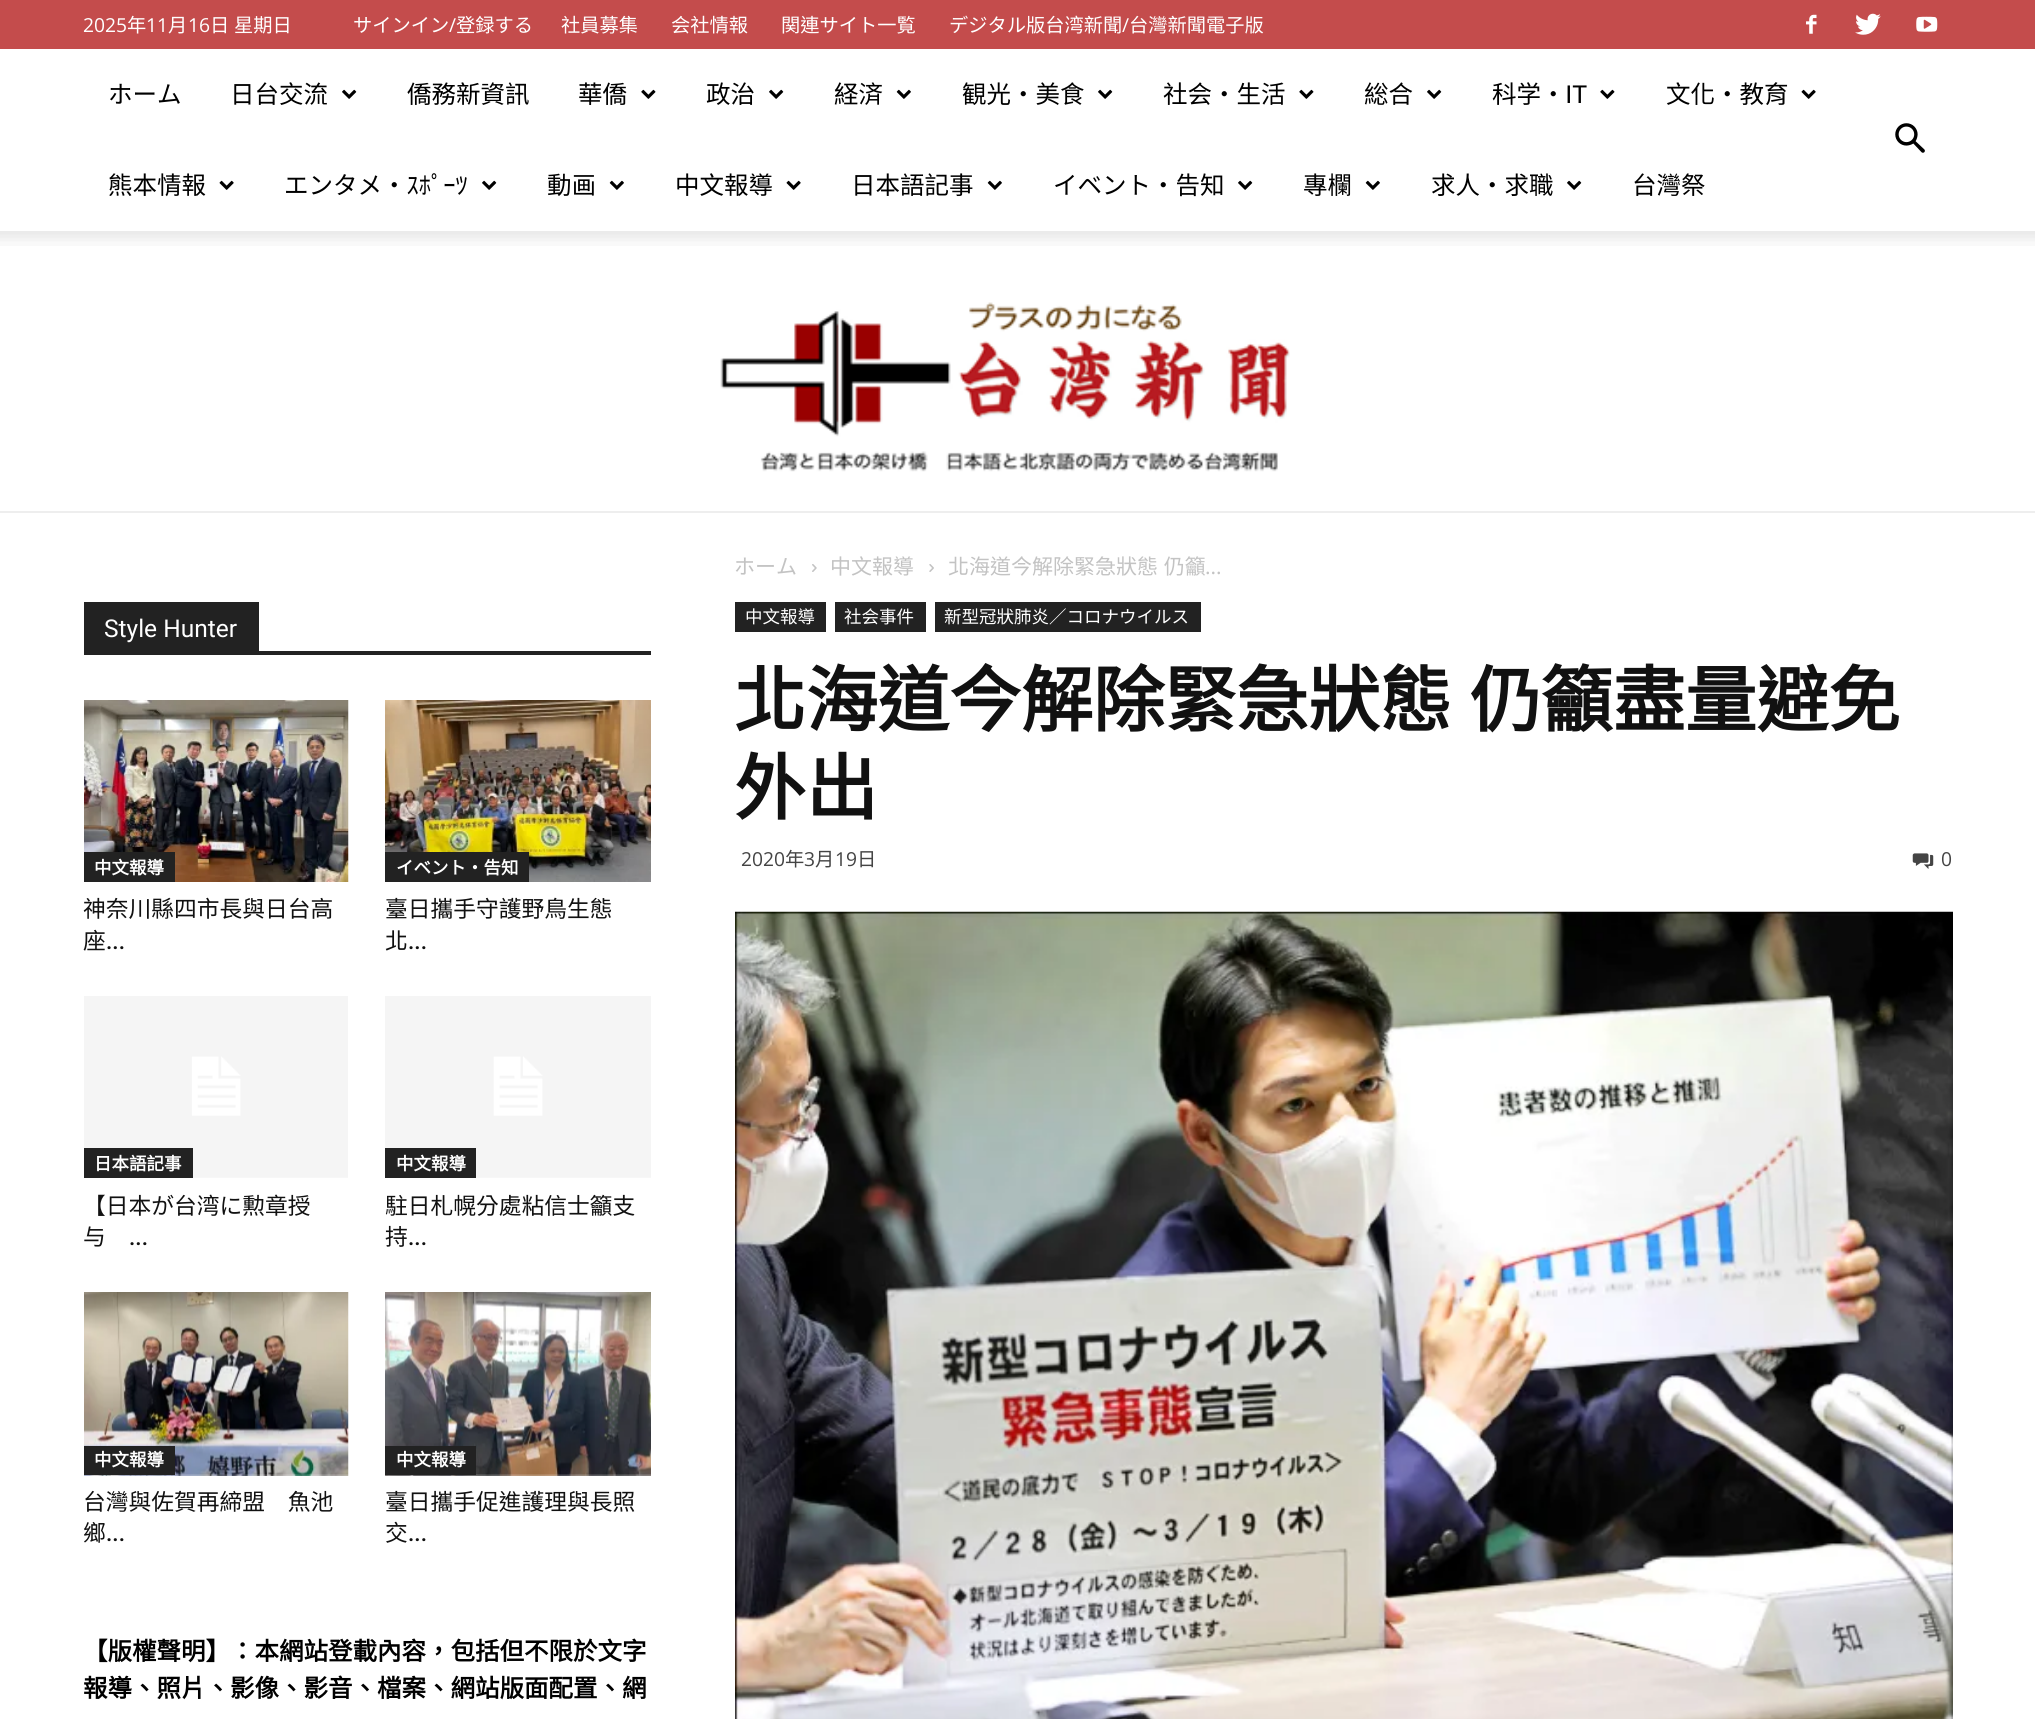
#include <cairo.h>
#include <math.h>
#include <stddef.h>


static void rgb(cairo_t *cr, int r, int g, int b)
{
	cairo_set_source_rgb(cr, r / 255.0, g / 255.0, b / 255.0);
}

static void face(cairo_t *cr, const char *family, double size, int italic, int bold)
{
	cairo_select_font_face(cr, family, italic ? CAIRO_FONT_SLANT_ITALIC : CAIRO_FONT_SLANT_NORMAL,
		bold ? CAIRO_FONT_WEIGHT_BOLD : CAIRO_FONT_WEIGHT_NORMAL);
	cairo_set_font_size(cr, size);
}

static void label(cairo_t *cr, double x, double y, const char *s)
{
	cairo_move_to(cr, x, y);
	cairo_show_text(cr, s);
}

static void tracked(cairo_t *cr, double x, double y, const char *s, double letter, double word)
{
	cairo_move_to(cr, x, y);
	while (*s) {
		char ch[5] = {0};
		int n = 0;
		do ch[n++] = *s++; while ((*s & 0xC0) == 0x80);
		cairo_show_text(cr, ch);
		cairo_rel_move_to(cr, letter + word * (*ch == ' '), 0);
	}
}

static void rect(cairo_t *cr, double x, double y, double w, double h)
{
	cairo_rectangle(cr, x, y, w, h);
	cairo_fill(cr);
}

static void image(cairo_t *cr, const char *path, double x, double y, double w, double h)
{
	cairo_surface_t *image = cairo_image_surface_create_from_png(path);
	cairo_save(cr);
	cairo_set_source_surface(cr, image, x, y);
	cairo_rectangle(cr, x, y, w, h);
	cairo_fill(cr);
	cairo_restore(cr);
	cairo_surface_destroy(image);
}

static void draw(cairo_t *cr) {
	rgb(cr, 255, 255, 255);
	cairo_paint(cr);
	rgb(cr, 196, 76, 76);
	rect(cr, 0, 0, 2035, 49);
	face(cr, "Open Sans", 19.25, 0, 0);
	rgb(cr, 255, 255, 255);
	label(cr, 83, 32, "2025");
	face(cr, "Noto Sans CJK TC", 19.25, 0, 0);
	label(cr, 127, 32, "年");
	face(cr, "Open Sans", 19.25, 0, 0);
	label(cr, 146, 32, "11");
	face(cr, "Noto Sans CJK TC", 19.25, 0, 0);
	label(cr, 168, 32, "月");
	face(cr, "Open Sans", 19.25, 0, 0);
	label(cr, 188, 32, "16");
	face(cr, "Noto Sans CJK TC", 19.25, 0, 0);
	label(cr, 210, 32, "日");
	label(cr, 234, 32, "星期日");
	label(cr, 353, 32, "サインイン");
	face(cr, "Open Sans", 19.25, 0, 0);
	label(cr, 449, 32, "/");
	face(cr, "Noto Sans CJK TC", 19.25, 0, 0);
	label(cr, 456, 32, "登録する");
	label(cr, 561, 32, "社員募集");
	label(cr, 671, 32, "会社情報");
	label(cr, 781, 32, "関連サイト一覧");
	label(cr, 949, 32, "デジタル版台湾新聞");
	face(cr, "Open Sans", 19.25, 0, 0);
	label(cr, 1122, 32, "/");
	face(cr, "Noto Sans CJK TC", 19.25, 0, 0);
	label(cr, 1129, 32, "台灣新聞電子版");
	image(cr, "image0.png", 1806, 14, 11, 20);
	image(cr, "image1.png", 1855, 13, 26, 22);
	image(cr, "image2.png", 1916, 16, 22, 16);
	face(cr, "Noto Sans CJK TC", 24.5, 0, 0);
	rgb(cr, 0, 0, 0);
	label(cr, 108, 103, "ホーム");
	label(cr, 230, 103, "日台交流");
	image(cr, "image3.png", 342, 89, 15, 10);
	label(cr, 407, 103, "僑務新資訊");
	label(cr, 578, 103, "華僑");
	image(cr, "image4.png", 641, 89, 15, 10);
	label(cr, 706, 103, "政治");
	image(cr, "image3.png", 769, 89, 15, 10);
	label(cr, 834, 103, "経済");
	image(cr, "image5.png", 896, 89, 15, 10);
	label(cr, 962, 103, "観光・美食");
	image(cr, "image3.png", 1098, 89, 15, 10);
	label(cr, 1163, 103, "社会・生活");
	image(cr, "image4.png", 1299, 89, 15, 10);
	label(cr, 1364, 103, "総合");
	image(cr, "image3.png", 1427, 89, 15, 10);
	label(cr, 1492, 103, "科学・");
	face(cr, "Lato", 24.5, 0, 0);
	label(cr, 1565, 103, "IT");
	image(cr, "image4.png", 1600, 89, 15, 10);
	face(cr, "Noto Sans CJK TC", 24.5, 0, 0);
	label(cr, 1666, 103, "文化・教育");
	image(cr, "image6.png", 1801, 89, 15, 10);
	label(cr, 108, 194, "熊本情報");
	image(cr, "image6.png", 219, 180, 15, 10);
	label(cr, 284, 194, "エンタメ・ｽﾎﾟｰﾂ");
	image(cr, "image3.png", 482, 180, 15, 10);
	label(cr, 547, 194, "動画");
	image(cr, "image5.png", 609, 180, 15, 10);
	label(cr, 675, 194, "中文報導");
	image(cr, "image6.png", 786, 180, 15, 10);
	label(cr, 851, 194, "日本語記事");
	image(cr, "image5.png", 987, 180, 15, 10);
	label(cr, 1053, 194, "イベント・告知");
	image(cr, "image3.png", 1238, 180, 15, 10);
	label(cr, 1303, 194, "專欄");
	image(cr, "image5.png", 1365, 180, 15, 10);
	label(cr, 1431, 194, "求人・求職");
	image(cr, "image3.png", 1567, 180, 15, 10);
	label(cr, 1632, 194, "台灣祭");
	image(cr, "image7.png", 1895, 123, 30, 30);
	image(cr, "image8.png", 0, 231, 2035, 15);
	rgb(cr, 238, 238, 238);
	rect(cr, 0, 511, 2035, 2);
	image(cr, "image9.png", 720, 302, 570, 170);
	face(cr, "Noto Sans CJK TC", 21, 0, 0);
	rgb(cr, 195, 195, 195);
	label(cr, 734, 574, "ホーム");
	image(cr, "image10.png", 812, 564, 5, 8);
	label(cr, 830, 574, "中文報導");
	image(cr, "image11.png", 929, 564, 5, 8);
	tracked(cr, 948, 574, "北海道今解除緊急狀態 仍籲", 0, 1);
	face(cr, "Open Sans", 21, 0, 0);
	label(cr, 1205, 574, "...");
	rgb(cr, 34, 34, 34);
	rect(cr, 84, 651, 567, 4);
	rect(cr, 84, 602, 175, 49);
	face(cr, "Roboto", 24.5, 0, 0);
	rgb(cr, 255, 255, 255);
	label(cr, 104, 637, "Style Hunter");
	image(cr, "image12.png", 84, 700, 265, 182);
	rgb(cr, 34, 34, 34);
	rect(cr, 84, 852, 91, 30);
	face(cr, "Noto Sans CJK TC", 17.5, 0, 1);
	rgb(cr, 255, 255, 255);
	label(cr, 94, 874, "中文報導");
	face(cr, "Noto Sans CJK TC", 22.75, 0, 0);
	rgb(cr, 17, 17, 17);
	label(cr, 83, 917, "神奈川縣四市長與日台高");
	label(cr, 83, 949, "座");
	face(cr, "Roboto Medium", 22.75, 0, 0);
	label(cr, 106, 949, "...");
	image(cr, "image13.png", 385, 700, 266, 182);
	rgb(cr, 34, 34, 34);
	rect(cr, 385, 852, 144, 30);
	face(cr, "Noto Sans CJK TC", 17.5, 0, 1);
	rgb(cr, 255, 255, 255);
	label(cr, 396, 874, "イベント・告知");
	face(cr, "Noto Sans CJK TC", 22.75, 0, 0);
	rgb(cr, 17, 17, 17);
	label(cr, 385, 917, "臺日攜手守護野鳥生態");
	label(cr, 385, 949, "北");
	face(cr, "Roboto Medium", 22.75, 0, 0);
	label(cr, 408, 949, "...");
	image(cr, "image14.png", 84, 996, 264, 182);
	rgb(cr, 34, 34, 34);
	rect(cr, 84, 1148, 109, 30);
	face(cr, "Noto Sans CJK TC", 17.5, 0, 1);
	rgb(cr, 255, 255, 255);
	label(cr, 94, 1170, "日本語記事");
	face(cr, "Noto Sans CJK TC", 22.75, 0, 0);
	rgb(cr, 17, 17, 17);
	label(cr, 83, 1214, "【日本が台湾に勲章授");
	label(cr, 83, 1245, "与");
	face(cr, "Roboto Medium", 22.75, 0, 0);
	label(cr, 129, 1245, "...");
	image(cr, "image15.png", 385, 996, 266, 182);
	rgb(cr, 34, 34, 34);
	rect(cr, 385, 1148, 91, 30);
	face(cr, "Noto Sans CJK TC", 17.5, 0, 1);
	rgb(cr, 255, 255, 255);
	label(cr, 396, 1170, "中文報導");
	face(cr, "Noto Sans CJK TC", 22.75, 0, 0);
	rgb(cr, 17, 17, 17);
	label(cr, 385, 1214, "駐日札幌分處粘信士籲支");
	label(cr, 385, 1245, "持");
	face(cr, "Roboto Medium", 22.75, 0, 0);
	label(cr, 408, 1245, "...");
	image(cr, "image16.png", 84, 1292, 265, 184);
	rgb(cr, 34, 34, 34);
	rect(cr, 84, 1446, 91, 29);
	face(cr, "Noto Sans CJK TC", 17.5, 0, 1);
	rgb(cr, 255, 255, 255);
	label(cr, 94, 1466, "中文報導");
	face(cr, "Noto Sans CJK TC", 22.75, 0, 0);
	rgb(cr, 17, 17, 17);
	label(cr, 83, 1510, "台灣與佐賀再締盟　魚池");
	label(cr, 83, 1541, "鄉");
	face(cr, "Roboto Medium", 22.75, 0, 0);
	label(cr, 106, 1541, "...");
	image(cr, "image17.png", 385, 1292, 266, 184);
	rgb(cr, 34, 34, 34);
	rect(cr, 385, 1446, 91, 29);
	face(cr, "Noto Sans CJK TC", 17.5, 0, 1);
	rgb(cr, 255, 255, 255);
	label(cr, 396, 1466, "中文報導");
	face(cr, "Noto Sans CJK TC", 22.75, 0, 0);
	rgb(cr, 17, 17, 17);
	label(cr, 385, 1510, "臺日攜手促進護理與長照");
	label(cr, 385, 1541, "交");
	face(cr, "Roboto Medium", 22.75, 0, 0);
	label(cr, 408, 1541, "...");
	face(cr, "Noto Sans CJK TC", 24.5, 0, 1);
	rgb(cr, 0, 0, 0);
	label(cr, 83, 1660, "【版權聲明】：本網站登載內容，包括但不限於文字");
	label(cr, 83, 1697, "報導、照片、影像、影音、檔案、網站版面配置、網");
	rgb(cr, 34, 34, 34);
	rect(cr, 735, 602, 91, 30);
	face(cr, "Noto Sans CJK TC", 17.5, 0, 0);
	rgb(cr, 255, 255, 255);
	label(cr, 745, 623, "中文報導");
	rgb(cr, 34, 34, 34);
	rect(cr, 835, 602, 91, 30);
	rgb(cr, 255, 255, 255);
	label(cr, 844, 623, "社会事件");
	rgb(cr, 34, 34, 34);
	rect(cr, 935, 602, 266, 30);
	rgb(cr, 255, 255, 255);
	label(cr, 944, 623, "新型冠狀肺炎／コロナウイルス");
	face(cr, "Noto Sans CJK TC", 71.75, 0, 1);
	rgb(cr, 17, 17, 17);
	tracked(cr, 734, 726, "北海道今解除緊急狀態 仍籲盡量避免", 0, 2);
	label(cr, 734, 814, "外出");
	face(cr, "Open Sans", 19.25, 0, 0);
	rgb(cr, 68, 68, 68);
	label(cr, 741, 866, "2020");
	face(cr, "Noto Sans CJK TC", 19.25, 0, 0);
	label(cr, 785, 866, "年");
	face(cr, "Open Sans", 19.25, 0, 0);
	label(cr, 804, 866, "3");
	face(cr, "Noto Sans CJK TC", 19.25, 0, 0);
	label(cr, 815, 866, "月");
	face(cr, "Open Sans", 19.25, 0, 0);
	label(cr, 835, 866, "19");
	face(cr, "Noto Sans CJK TC", 19.25, 0, 0);
	label(cr, 857, 866, "日");
	image(cr, "image18.png", 1912, 853, 22, 16);
	face(cr, "Open Sans", 19.25, 0, 0);
	label(cr, 1941, 866, "0");
	image(cr, "image19.png", 735, 911, 1218, 808);
}

int main(void) {
	cairo_surface_t *surface = cairo_image_surface_create(CAIRO_FORMAT_RGB24, 2035, 1719);
	cairo_t *cr = cairo_create(surface);
	cairo_font_options_t *options = cairo_font_options_create();
	cairo_font_options_set_hint_metrics(options, CAIRO_HINT_METRICS_OFF);
	cairo_font_options_set_hint_style(options, CAIRO_HINT_STYLE_NONE);
	cairo_set_font_options(cr, options);
	cairo_set_miter_limit(cr, 4);
	draw(cr);
	cairo_surface_write_to_png(surface, "render.png");
	cairo_font_options_destroy(options);
	cairo_destroy(cr);
	cairo_surface_destroy(surface);
	return 0;
}
